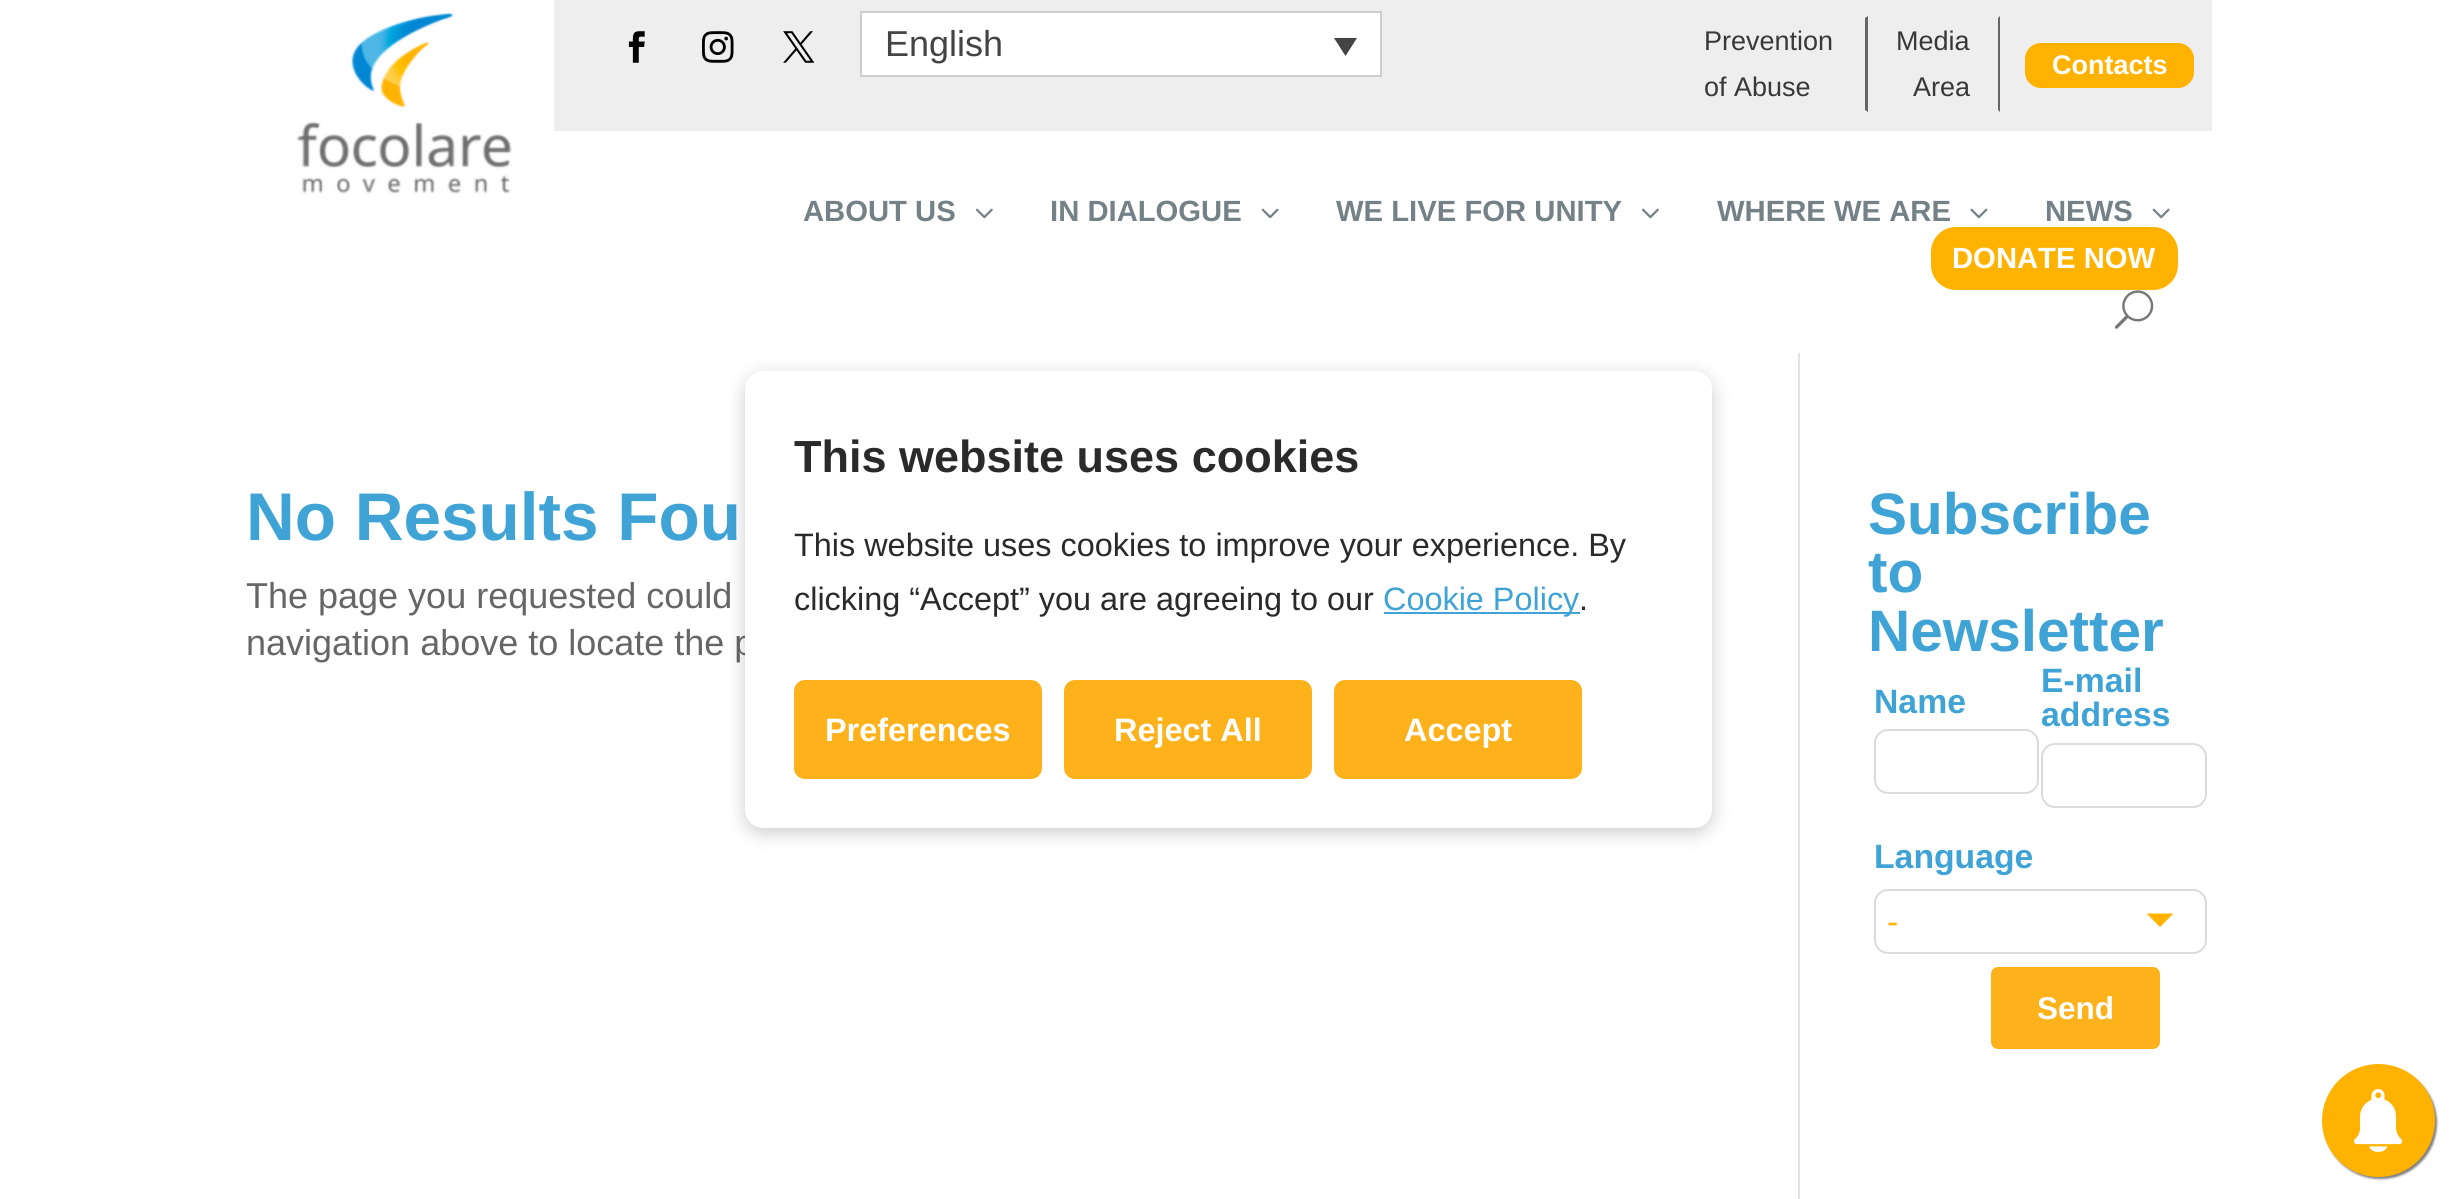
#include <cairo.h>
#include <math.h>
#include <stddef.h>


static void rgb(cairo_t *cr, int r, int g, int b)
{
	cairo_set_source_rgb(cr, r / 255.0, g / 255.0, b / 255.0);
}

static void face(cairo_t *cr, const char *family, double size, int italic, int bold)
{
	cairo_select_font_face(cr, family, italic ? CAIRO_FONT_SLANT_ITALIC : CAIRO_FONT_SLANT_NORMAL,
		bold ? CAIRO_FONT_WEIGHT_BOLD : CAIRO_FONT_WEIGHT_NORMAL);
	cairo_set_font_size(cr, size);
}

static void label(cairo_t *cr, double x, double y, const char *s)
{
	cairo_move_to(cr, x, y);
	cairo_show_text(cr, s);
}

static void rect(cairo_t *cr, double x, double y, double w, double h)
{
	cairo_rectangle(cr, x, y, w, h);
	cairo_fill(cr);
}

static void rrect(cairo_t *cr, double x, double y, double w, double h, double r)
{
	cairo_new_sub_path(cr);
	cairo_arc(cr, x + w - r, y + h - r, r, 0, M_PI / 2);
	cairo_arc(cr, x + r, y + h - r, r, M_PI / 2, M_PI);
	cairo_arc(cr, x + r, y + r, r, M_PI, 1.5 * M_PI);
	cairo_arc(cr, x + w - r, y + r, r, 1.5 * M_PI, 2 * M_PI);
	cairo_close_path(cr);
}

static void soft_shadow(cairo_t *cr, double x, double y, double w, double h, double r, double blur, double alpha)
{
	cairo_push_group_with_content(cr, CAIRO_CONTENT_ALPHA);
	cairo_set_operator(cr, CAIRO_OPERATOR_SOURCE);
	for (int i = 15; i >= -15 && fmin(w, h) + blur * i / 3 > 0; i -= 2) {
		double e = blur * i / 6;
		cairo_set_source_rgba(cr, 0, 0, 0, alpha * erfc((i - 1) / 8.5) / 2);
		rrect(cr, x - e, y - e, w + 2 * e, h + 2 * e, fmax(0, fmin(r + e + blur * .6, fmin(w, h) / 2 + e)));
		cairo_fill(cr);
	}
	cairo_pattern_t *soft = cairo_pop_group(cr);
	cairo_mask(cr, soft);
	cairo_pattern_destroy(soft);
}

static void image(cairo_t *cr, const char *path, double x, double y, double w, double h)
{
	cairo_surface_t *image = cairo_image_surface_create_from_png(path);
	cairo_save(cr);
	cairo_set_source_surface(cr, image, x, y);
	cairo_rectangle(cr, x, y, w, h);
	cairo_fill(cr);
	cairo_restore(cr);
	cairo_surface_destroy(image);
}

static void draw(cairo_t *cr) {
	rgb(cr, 255, 255, 255);
	cairo_paint(cr);
	image(cr, "image0.png", 296, 12, 216, 182);
	rgb(cr, 238, 238, 238);
	rect(cr, 554, 0, 1658, 131);
	image(cr, "image1.png", 628, 31, 17, 32);
	image(cr, "image2.png", 702, 31, 32, 32);
	image(cr, "image3.png", 783, 31, 32, 32);
	rgb(cr, 255, 255, 255);
	cairo_rectangle(cr, 861, 12, 520, 64);
	cairo_fill_preserve(cr);
	rgb(cr, 205, 205, 205);
	cairo_stroke(cr);
	face(cr, "Liberation Sans", 36, 0, 0);
	rgb(cr, 68, 68, 68);
	label(cr, 885, 56, "English");
	cairo_new_path(cr);
	cairo_move_to(cr, 1334, 38);
	cairo_line_to(cr, 1357, 38);
	cairo_line_to(cr, 1345.5, 56);
	cairo_close_path(cr);
	cairo_fill(cr);
	rgb(cr, 102, 102, 102);
	cairo_new_path(cr);
	cairo_move_to(cr, 1868, 16);
	cairo_line_to(cr, 1868, 112);
	cairo_line_to(cr, 1865, 110);
	cairo_line_to(cr, 1865, 18);
	cairo_close_path(cr);
	cairo_fill(cr);
	face(cr, "Liberation Sans", 27, 0, 0);
	rgb(cr, 56, 56, 56);
	label(cr, 1704, 50, "Prevention");
	label(cr, 1704, 96, "of Abuse");
	rgb(cr, 102, 102, 102);
	cairo_new_path(cr);
	cairo_move_to(cr, 2000, 16);
	cairo_line_to(cr, 2000, 112);
	cairo_line_to(cr, 1998, 110);
	cairo_line_to(cr, 1998, 18);
	cairo_close_path(cr);
	cairo_fill(cr);
	rgb(cr, 56, 56, 56);
	label(cr, 1896, 50, "Media");
	label(cr, 1913, 96, "Area");
	rgb(cr, 255, 179, 0);
	rrect(cr, 2025, 43, 169, 45, 16);
	cairo_fill(cr);
	face(cr, "Liberation Sans", 27, 0, 1);
	rgb(cr, 255, 255, 255);
	label(cr, 2052, 74, "Contacts");
	face(cr, "Liberation Sans", 29.25, 0, 1);
	rgb(cr, 116, 129, 134);
	label(cr, 803, 221, "ABOUT US");
	image(cr, "image4.png", 976, 208, 17, 11);
	label(cr, 1050, 221, "IN DIALOGUE");
	image(cr, "image5.png", 1261, 208, 18, 11);
	label(cr, 1336, 221, "WE LIVE FOR UNITY");
	image(cr, "image4.png", 1642, 208, 17, 11);
	label(cr, 1717, 221, "WHERE WE ARE");
	image(cr, "image6.png", 1970, 208, 18, 11);
	label(cr, 2045, 221, "NEWS");
	image(cr, "image5.png", 2152, 208, 18, 11);
	rgb(cr, 255, 179, 0);
	rrect(cr, 1931, 227, 247, 63, 25);
	cairo_fill(cr);
	rgb(cr, 255, 255, 255);
	label(cr, 1952, 268, "DONATE NOW");
	image(cr, "image7.png", 2114, 290, 40, 39);
	rgb(cr, 226, 226, 226);
	rect(cr, 1798, 353, 2, 846);
	face(cr, "Liberation Sans", 67.5, 0, 1);
	rgb(cr, 63, 163, 214);
	label(cr, 246, 540, "No Results Fou");
	face(cr, "Liberation Sans", 36, 0, 0);
	rgb(cr, 102, 102, 102);
	label(cr, 246, 608, "The page you requested could");
	label(cr, 246, 655, "navigation above to locate the p");
	face(cr, "Liberation Sans", 58.5, 0, 1);
	rgb(cr, 63, 163, 214);
	label(cr, 1868, 534, "Subscribe");
	label(cr, 1868, 592, "to");
	label(cr, 1868, 651, "Newsletter");
	face(cr, "Liberation Sans", 33.75, 0, 1);
	label(cr, 1874, 713, "Name");
	rrect(cr, 1875, 730, 163, 63, 13);
	rgb(cr, 219, 219, 219);
	cairo_stroke(cr);
	rgb(cr, 63, 163, 214);
	label(cr, 2041, 692, "E-mail");
	label(cr, 2041, 726, "address");
	rrect(cr, 2042, 744, 164, 63, 13);
	rgb(cr, 219, 219, 219);
	cairo_stroke(cr);
	rgb(cr, 63, 163, 214);
	label(cr, 1874, 868, "Language");
	rrect(cr, 1875, 890, 331, 63, 13);
	rgb(cr, 219, 219, 219);
	cairo_stroke(cr);
	face(cr, "Liberation Sans", 33.75, 0, 0);
	rgb(cr, 255, 179, 0);
	label(cr, 1887, 933, "-");
	cairo_new_path(cr);
	cairo_move_to(cr, 2146.5, 913.5);
	cairo_line_to(cr, 2173.5, 913.5);
	cairo_line_to(cr, 2160, 927);
	cairo_close_path(cr);
	cairo_fill(cr);
	rgb(cr, 253, 177, 26);
	rrect(cr, 1990, 966, 171, 84, 8);
	cairo_fill_preserve(cr);
	rgb(cr, 255, 255, 255);
	cairo_stroke(cr);
	face(cr, "Liberation Sans", 31.5, 0, 1);
	label(cr, 2037, 1019, "Send");
	rgb(cr, 0, 0, 0);
	soft_shadow(cr, 745, 376, 967, 457, 18, 9, 0.2);
	rgb(cr, 255, 255, 255);
	rrect(cr, 745, 371, 967, 457, 18);
	cairo_fill(cr);
	face(cr, "Liberation Sans", 45, 0, 1);
	rgb(cr, 42, 42, 42);
	label(cr, 794, 472, "This website uses cookies");
	face(cr, "Liberation Sans", 32.4, 0, 0);
	label(cr, 794, 556, "This website uses cookies to improve your experience. By");
	label(cr, 794, 610, "clicking “Accept” you are agreeing to our");
	rgb(cr, 63, 163, 214);
	rect(cr, 1384, 612, 196, 2);
	label(cr, 1383, 610, "Cookie Policy");
	rgb(cr, 42, 42, 42);
	label(cr, 1579, 610, ".");
	rgb(cr, 253, 177, 26);
	rrect(cr, 794, 680, 248, 99, 11);
	cairo_fill(cr);
	face(cr, "Liberation Sans", 32.4, 0, 1);
	rgb(cr, 255, 255, 255);
	label(cr, 825, 741, "Preferences");
	rgb(cr, 253, 177, 26);
	rrect(cr, 1064, 680, 248, 99, 11);
	cairo_fill(cr);
	rgb(cr, 255, 255, 255);
	label(cr, 1114, 741, "Reject All");
	rgb(cr, 253, 177, 26);
	rrect(cr, 1334, 680, 248, 99, 11);
	cairo_fill(cr);
	rgb(cr, 255, 255, 255);
	label(cr, 1404, 741, "Accept");
	rgb(cr, 0, 0, 0);
	soft_shadow(cr, 2324, 1067, 113, 112, 56, 1, 0.5);
	rgb(cr, 255, 179, 0);
	cairo_arc(cr, 2378.5, 1120.5, 56.5, 0, 2 * M_PI);
	cairo_fill(cr);
	image(cr, "image8.png", 2354, 1089, 49, 63);
}

int main(void) {
	cairo_surface_t *surface = cairo_image_surface_create(CAIRO_FORMAT_RGB24, 2457, 1199);
	cairo_t *cr = cairo_create(surface);
	cairo_font_options_t *options = cairo_font_options_create();
	cairo_font_options_set_hint_metrics(options, CAIRO_HINT_METRICS_OFF);
	cairo_font_options_set_hint_style(options, CAIRO_HINT_STYLE_NONE);
	cairo_set_font_options(cr, options);
	cairo_set_miter_limit(cr, 4);
	draw(cr);
	cairo_surface_write_to_png(surface, "render.png");
	cairo_font_options_destroy(options);
	cairo_destroy(cr);
	cairo_surface_destroy(surface);
	return 0;
}
